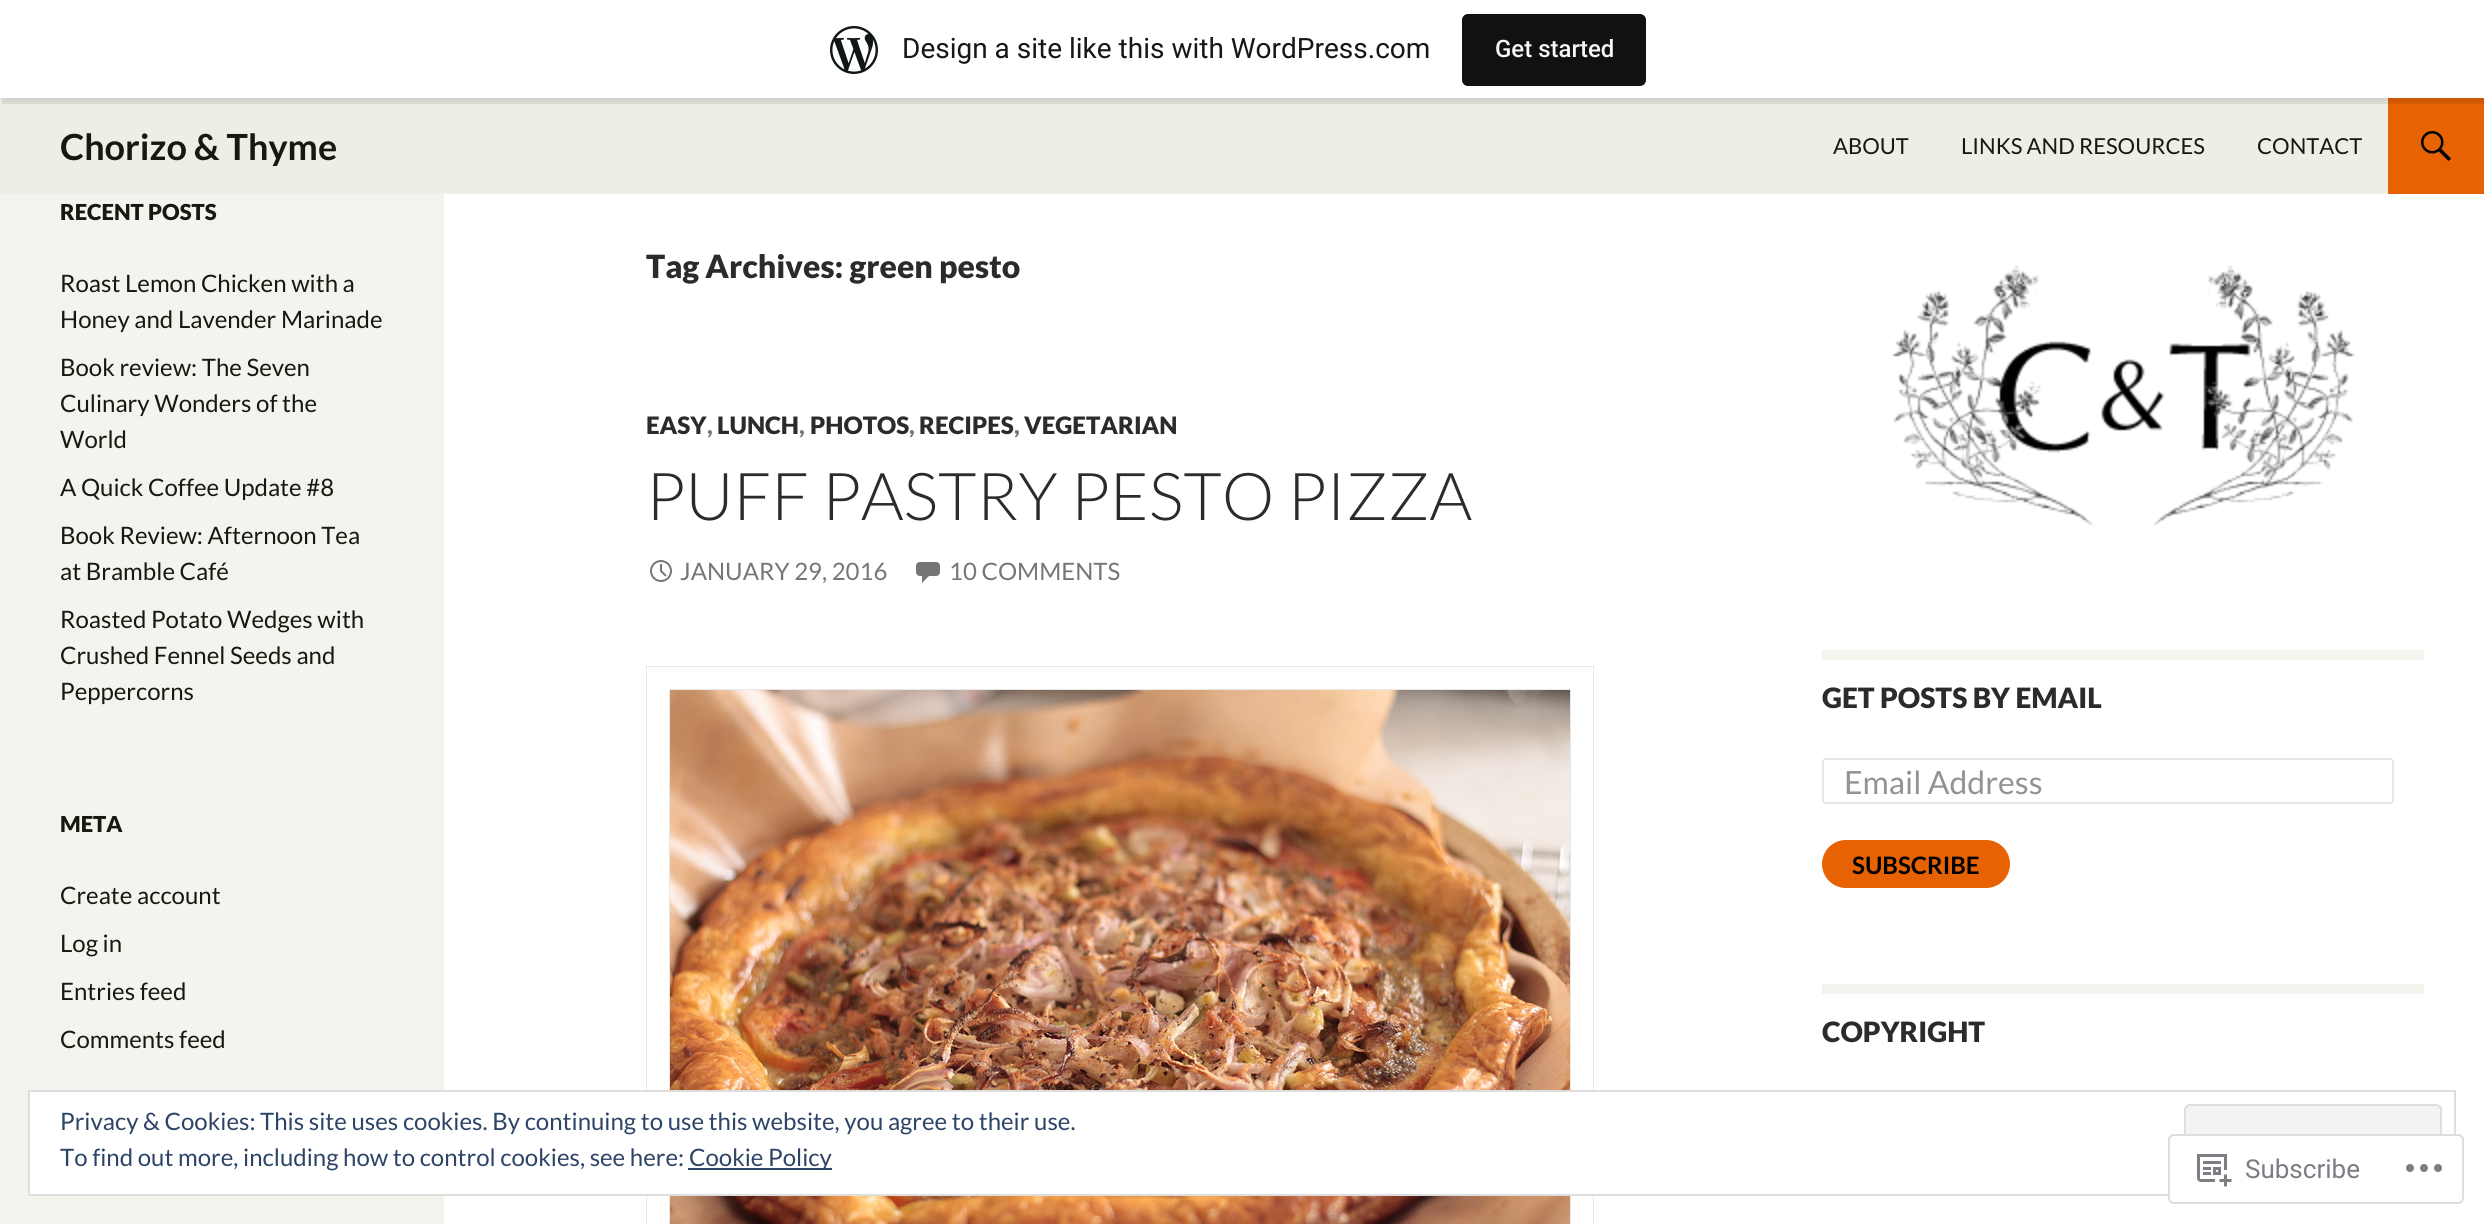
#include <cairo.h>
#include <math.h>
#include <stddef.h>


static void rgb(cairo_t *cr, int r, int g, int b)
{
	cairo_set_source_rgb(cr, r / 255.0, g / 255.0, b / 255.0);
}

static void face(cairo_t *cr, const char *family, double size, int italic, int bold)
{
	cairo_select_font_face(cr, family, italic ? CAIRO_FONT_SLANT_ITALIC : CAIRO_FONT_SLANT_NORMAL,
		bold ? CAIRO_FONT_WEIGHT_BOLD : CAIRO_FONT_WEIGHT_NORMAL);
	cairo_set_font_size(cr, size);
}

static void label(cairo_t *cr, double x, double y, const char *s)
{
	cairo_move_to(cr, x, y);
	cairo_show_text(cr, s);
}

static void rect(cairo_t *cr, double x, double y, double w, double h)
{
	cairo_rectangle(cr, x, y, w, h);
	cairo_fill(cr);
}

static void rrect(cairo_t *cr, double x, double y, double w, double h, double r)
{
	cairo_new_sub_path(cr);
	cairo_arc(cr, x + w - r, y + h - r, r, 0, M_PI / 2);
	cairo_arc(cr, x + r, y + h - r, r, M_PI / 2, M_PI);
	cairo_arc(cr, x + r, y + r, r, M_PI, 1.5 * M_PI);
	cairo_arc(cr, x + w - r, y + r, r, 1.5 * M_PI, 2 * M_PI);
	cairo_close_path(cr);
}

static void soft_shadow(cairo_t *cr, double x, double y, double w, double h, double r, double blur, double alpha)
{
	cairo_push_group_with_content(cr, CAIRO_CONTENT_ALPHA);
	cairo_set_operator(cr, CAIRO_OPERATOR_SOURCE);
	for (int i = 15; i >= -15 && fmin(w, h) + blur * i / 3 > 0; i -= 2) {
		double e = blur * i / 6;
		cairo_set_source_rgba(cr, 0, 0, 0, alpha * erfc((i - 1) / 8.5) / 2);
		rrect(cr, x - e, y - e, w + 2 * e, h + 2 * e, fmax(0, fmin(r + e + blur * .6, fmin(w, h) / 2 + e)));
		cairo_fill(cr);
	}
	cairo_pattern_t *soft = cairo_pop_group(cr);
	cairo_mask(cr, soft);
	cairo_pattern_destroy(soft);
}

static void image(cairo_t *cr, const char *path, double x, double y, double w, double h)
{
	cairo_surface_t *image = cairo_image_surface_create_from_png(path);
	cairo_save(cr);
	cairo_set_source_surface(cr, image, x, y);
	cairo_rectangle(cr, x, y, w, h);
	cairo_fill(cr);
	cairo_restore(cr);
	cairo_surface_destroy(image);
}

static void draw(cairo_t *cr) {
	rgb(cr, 255, 255, 255);
	cairo_paint(cr);
	rgb(cr, 238, 238, 230);
	rect(cr, 0, 98, 2388, 96);
	rgb(cr, 231, 98, 3);
	rect(cr, 2388, 98, 96, 96);
	rgb(cr, 0, 0, 0);
	soft_shadow(cr, 0, 2, 2484, 98, 0, 2, 0.05);
	cairo_set_source_rgba(cr, 0, 0, 0, 0.08);
	cairo_new_path(cr);
	cairo_move_to(cr, 2, 98);
	cairo_line_to(cr, 2, 104);
	cairo_line_to(cr, 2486, 104);
	cairo_line_to(cr, 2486, 6);
	cairo_line_to(cr, 2484, 6);
	cairo_line_to(cr, 2484, 98);
	cairo_close_path(cr);
	cairo_fill(cr);
	rgb(cr, 255, 255, 255);
	rect(cr, 0, 0, 2484, 98);
	image(cr, "image0.png", 830, 26, 48, 48);
	face(cr, "Roboto", 28, 0, 0);
	rgb(cr, 23, 23, 23);
	label(cr, 902, 58, "Design a site like this with WordPress.com");
	rgb(cr, 17, 17, 17);
	rrect(cr, 1462, 14, 184, 72, 6);
	cairo_fill(cr);
	face(cr, "Roboto Medium", 24, 0, 0);
	rgb(cr, 246, 247, 247);
	label(cr, 1495, 57, "Get started");
	face(cr, "Lato", 36, 0, 1);
	rgb(cr, 24, 24, 16);
	label(cr, 60, 160, "Chorizo & Thyme");
	face(cr, "Lato", 22, 0, 0);
	label(cr, 1833, 154, "ABOUT");
	label(cr, 1961, 154, "LINKS AND RESOURCES");
	label(cr, 2257, 154, "CONTACT");
	image(cr, "image1.png", 2421, 131, 30, 30);
	rgb(cr, 244, 244, 239);
	rect(cr, 0, 194, 444, 1030);
	face(cr, "Lato Black", 22, 0, 0);
	rgb(cr, 24, 24, 16);
	label(cr, 60, 220, "RECENT POSTS");
	face(cr, "Lato", 24, 0, 0);
	label(cr, 60, 292, "Roast Lemon Chicken with a");
	label(cr, 60, 328, "Honey and Lavender Marinade");
	label(cr, 60, 376, "Book review: The Seven");
	label(cr, 60, 412, "Culinary Wonders of the");
	label(cr, 60, 448, "World");
	label(cr, 60, 496, "A Quick Coffee Update #8");
	label(cr, 60, 544, "Book Review: Afternoon Tea");
	label(cr, 60, 580, "at Bramble Café");
	label(cr, 60, 628, "Roasted Potato Wedges with");
	label(cr, 60, 664, "Crushed Fennel Seeds and");
	label(cr, 60, 700, "Peppercorns");
	face(cr, "Lato Black", 22, 0, 0);
	label(cr, 60, 832, "META");
	face(cr, "Lato", 24, 0, 0);
	label(cr, 60, 904, "Create account");
	label(cr, 60, 952, "Log in");
	label(cr, 60, 1000, "Entries feed");
	label(cr, 60, 1048, "Comments feed");
	face(cr, "Lato Black", 32, 0, 0);
	rgb(cr, 43, 43, 43);
	label(cr, 646, 278, "Tag Archives: green pesto");
	face(cr, "Lato Black", 24, 0, 0);
	label(cr, 646, 434, "EASY");
	rgb(cr, 118, 118, 118);
	label(cr, 707, 434, ",");
	rgb(cr, 43, 43, 43);
	label(cr, 717, 434, "LUNCH");
	rgb(cr, 118, 118, 118);
	label(cr, 799, 434, ",");
	rgb(cr, 43, 43, 43);
	label(cr, 810, 434, "PHOTOS");
	rgb(cr, 118, 118, 118);
	label(cr, 909, 434, ",");
	rgb(cr, 43, 43, 43);
	label(cr, 919, 434, "RECIPES");
	rgb(cr, 118, 118, 118);
	label(cr, 1014, 434, ",");
	rgb(cr, 43, 43, 43);
	label(cr, 1024, 434, "VEGETARIAN");
	face(cr, "Lato Light", 66, 0, 0);
	label(cr, 646, 520, "PUFF PASTRY PESTO PIZZA");
	image(cr, "image2.png", 650, 560, 22, 22);
	face(cr, "Lato", 24, 0, 0);
	rgb(cr, 118, 118, 118);
	label(cr, 680, 580, "JANUARY 29, 2016");
	image(cr, "image3.png", 916, 562, 24, 21);
	label(cr, 949, 580, "10 COMMENTS");
	image(cr, "image4.png", 646, 666, 948, 558);
	image(cr, "image5.png", 1892, 265, 463, 261);
	rgb(cr, 244, 244, 239);
	rect(cr, 1822, 650, 602, 10);
	face(cr, "Lato Black", 28, 0, 0);
	rgb(cr, 43, 43, 43);
	label(cr, 1822, 708, "GET POSTS BY EMAIL");
	rrect(cr, 1823, 759, 570, 44, 3);
	rgb(cr, 230, 230, 230);
	cairo_stroke(cr);
	face(cr, "Lato", 32, 0, 0);
	rgb(cr, 147, 147, 147);
	label(cr, 1844, 794, "Email Address");
	rgb(cr, 231, 98, 3);
	rrect(cr, 1822, 840, 188, 48, 24);
	cairo_fill(cr);
	face(cr, "Lato", 24, 0, 1);
	rgb(cr, 0, 0, 0);
	label(cr, 1852, 874, "SUBSCRIBE");
	rgb(cr, 244, 244, 239);
	rect(cr, 1822, 984, 602, 10);
	face(cr, "Lato Black", 28, 0, 0);
	rgb(cr, 43, 43, 43);
	label(cr, 1822, 1042, "COPYRIGHT");
	rgb(cr, 255, 255, 255);
	rect(cr, 30, 1092, 1564, 102);
	cairo_rectangle(cr, 29, 1091, 2426, 104);
	rgb(cr, 222, 222, 222);
	cairo_stroke(cr);
	face(cr, "Lato", 24, 0, 0);
	rgb(cr, 46, 68, 103);
	label(cr, 60, 1130, "Privacy & Cookies: This site uses cookies. By continuing to use this website, you agree to their use.");
	rgb(cr, 243, 243, 243);
	rrect(cr, 2185, 1105, 256, 76, 5);
	cairo_fill_preserve(cr);
	rgb(cr, 222, 222, 222);
	cairo_stroke(cr);
	rgb(cr, 46, 68, 103);
	label(cr, 60, 1166, "To find out more, including how to control cookies, see here:");
	rect(cr, 688, 1168, 144, 2);
	label(cr, 689, 1166, "Cookie Policy");
	cairo_set_source_rgba(cr, 1, 1, 1, 0.98);
	rrect(cr, 2168, 1134, 296, 70, 6);
	cairo_fill(cr);
	rrect(cr, 2169, 1135, 294, 68, 5);
	cairo_set_source_rgba(cr, 0.863, 0.863, 0.871, 0.98);
	cairo_stroke(cr);
	image(cr, "image6.png", 2197, 1154, 35, 33);
	face(cr, "Roboto", 26, 0, 0);
	rgb(cr, 122, 126, 132);
	label(cr, 2245, 1178, "Subscribe");
	image(cr, "image7.png", 2406, 1164, 36, 8);
}

int main(void) {
	cairo_surface_t *surface = cairo_image_surface_create(CAIRO_FORMAT_RGB24, 2484, 1224);
	cairo_t *cr = cairo_create(surface);
	cairo_font_options_t *options = cairo_font_options_create();
	cairo_font_options_set_hint_metrics(options, CAIRO_HINT_METRICS_OFF);
	cairo_font_options_set_hint_style(options, CAIRO_HINT_STYLE_NONE);
	cairo_set_font_options(cr, options);
	cairo_set_miter_limit(cr, 4);
	draw(cr);
	cairo_surface_write_to_png(surface, "render.png");
	cairo_font_options_destroy(options);
	cairo_destroy(cr);
	cairo_surface_destroy(surface);
	return 0;
}
